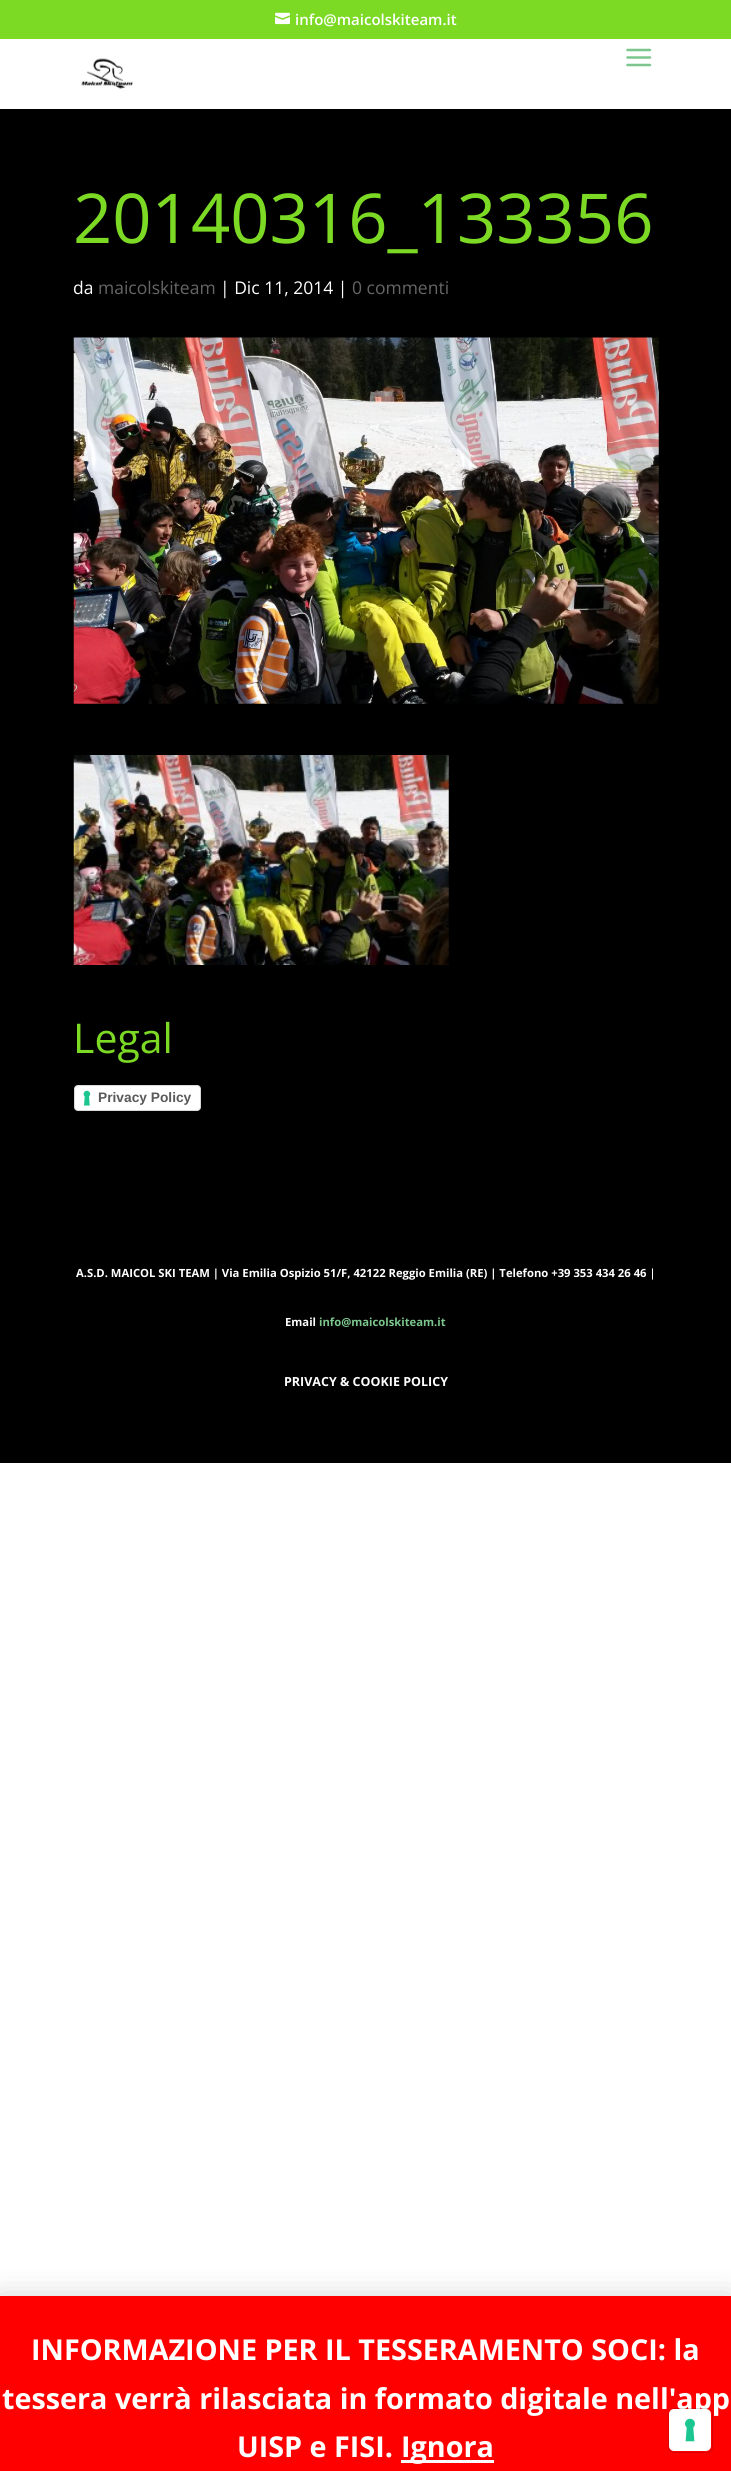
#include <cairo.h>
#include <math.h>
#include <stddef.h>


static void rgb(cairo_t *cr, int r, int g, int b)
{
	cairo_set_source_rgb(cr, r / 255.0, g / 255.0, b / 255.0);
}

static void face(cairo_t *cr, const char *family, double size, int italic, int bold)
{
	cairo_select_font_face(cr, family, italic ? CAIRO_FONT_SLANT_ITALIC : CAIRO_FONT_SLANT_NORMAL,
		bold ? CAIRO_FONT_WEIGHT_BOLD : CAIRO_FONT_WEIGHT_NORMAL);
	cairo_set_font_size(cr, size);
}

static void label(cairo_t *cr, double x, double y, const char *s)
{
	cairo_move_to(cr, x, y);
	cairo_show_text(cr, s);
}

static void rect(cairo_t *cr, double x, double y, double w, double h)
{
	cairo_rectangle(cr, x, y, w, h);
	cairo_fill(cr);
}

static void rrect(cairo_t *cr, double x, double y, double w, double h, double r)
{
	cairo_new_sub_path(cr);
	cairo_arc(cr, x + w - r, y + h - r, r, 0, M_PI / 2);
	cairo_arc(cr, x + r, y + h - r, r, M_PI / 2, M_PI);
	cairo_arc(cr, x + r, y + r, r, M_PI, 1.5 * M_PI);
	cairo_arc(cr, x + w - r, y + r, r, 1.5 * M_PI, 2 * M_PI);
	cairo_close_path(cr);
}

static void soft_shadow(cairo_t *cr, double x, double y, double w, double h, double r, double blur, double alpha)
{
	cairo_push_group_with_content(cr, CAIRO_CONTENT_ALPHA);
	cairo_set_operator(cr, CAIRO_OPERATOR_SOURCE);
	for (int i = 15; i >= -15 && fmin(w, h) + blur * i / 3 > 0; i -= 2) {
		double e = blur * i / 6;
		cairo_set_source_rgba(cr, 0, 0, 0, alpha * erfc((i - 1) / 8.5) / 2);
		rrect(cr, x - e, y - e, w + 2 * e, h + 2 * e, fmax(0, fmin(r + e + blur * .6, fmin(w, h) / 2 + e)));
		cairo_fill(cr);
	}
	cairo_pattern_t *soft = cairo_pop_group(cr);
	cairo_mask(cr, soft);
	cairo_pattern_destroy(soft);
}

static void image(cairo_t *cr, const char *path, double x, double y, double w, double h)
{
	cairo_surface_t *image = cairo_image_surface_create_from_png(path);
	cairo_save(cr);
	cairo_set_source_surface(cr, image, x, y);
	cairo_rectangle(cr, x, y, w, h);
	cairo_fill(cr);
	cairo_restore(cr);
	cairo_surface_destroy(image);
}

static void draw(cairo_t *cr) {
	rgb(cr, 255, 255, 255);
	cairo_paint(cr);
	rgb(cr, 124, 218, 36);
	rect(cr, 0, 0, 731, 39);
	image(cr, "image0.png", 275, 12, 15, 13);
	face(cr, "Open Sans SemiBold", 15, 0, 0);
	rgb(cr, 255, 255, 255);
	label(cr, 295, 25, "info@maicolskiteam.it");
	image(cr, "image1.png", 81, 58, 52, 31);
	image(cr, "image2.png", 626, 48, 26, 19);
	rgb(cr, 0, 0, 0);
	rect(cr, 0, 109, 731, 1354);
	face(cr, "Open Sans", 68.75, 0, 0);
	rgb(cr, 124, 218, 36);
	label(cr, 73, 243, "20140316_133356");
	face(cr, "Open Sans", 17.5, 0, 0);
	rgb(cr, 255, 255, 255);
	label(cr, 73, 294, "da");
	rgb(cr, 102, 102, 102);
	label(cr, 98, 294, "maicolskiteam");
	rgb(cr, 255, 255, 255);
	label(cr, 220, 294, "| Dic 11, 2014 |");
	rgb(cr, 102, 102, 102);
	label(cr, 352, 294, "0 commenti");
	image(cr, "image3.png", 73, 337, 586, 367);
	image(cr, "image4.png", 73, 755, 376, 210);
	face(cr, "Open Sans", 41, 0, 0);
	rgb(cr, 124, 218, 36);
	label(cr, 73, 1053, "Legal");
	rgb(cr, 255, 255, 255);
	rrect(cr, 74, 1085, 127, 26, 4);
	cairo_fill(cr);
	image(cr, "image5.png", 83, 1090, 8, 16);
	rrect(cr, 74.5, 1085.5, 126, 25, 3.5);
	cairo_set_source_rgba(cr, 0, 0, 0, 0.15);
	cairo_set_line_width(cr, 1);
	cairo_stroke(cr);
	face(cr, "Liberation Sans", 13.75, 0, 1);
	rgb(cr, 89, 89, 89);
	label(cr, 98, 1102, "Privacy Policy");
	face(cr, "Open Sans", 11.25, 0, 1);
	rgb(cr, 255, 255, 255);
	label(cr, 76, 1277, "A.S.D. MAICOL SKI TEAM | Via Emilia Ospizio 51/F, 42122 Reggio Emilia (RE) | Telefono +39 353 434 26 46 |");
	label(cr, 285, 1326, "Email");
	rgb(cr, 124, 198, 141);
	label(cr, 319, 1326, "info@maicolskiteam.it");
	face(cr, "Open Sans", 12.5, 0, 1);
	rgb(cr, 255, 255, 255);
	label(cr, 284, 1386, "PRIVACY & COOKIE POLICY");
	rgb(cr, 0, 0, 0);
	soft_shadow(cr, 0, 2298, 731, 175, 0, 14.5, 0.2);
	rgb(cr, 255, 0, 0);
	rect(cr, 0, 2296, 731, 175);
	face(cr, "Open Sans", 28.75, 0, 1);
	rgb(cr, 255, 255, 255);
	label(cr, 31, 2360, "INFORMAZIONE PER IL TESSERAMENTO SOCI: la");
	label(cr, 2, 2409, "tessera verrà rilasciata in formato digitale nell'app");
	label(cr, 237, 2457, "UISP e FISI.");
	rgb(cr, 252, 251, 254);
	rect(cr, 401, 2460, 93, 3);
	rgb(cr, 255, 255, 255);
	label(cr, 401, 2457, "Ignora");
	rrect(cr, 668.5, 2408.5, 44, 44, 5.5);
	cairo_set_source_rgba(cr, 0, 0, 0, 0.15);
	cairo_stroke(cr);
	rgb(cr, 255, 255, 255);
	rrect(cr, 669, 2409, 42, 42, 5);
	cairo_fill(cr);
	image(cr, "image6.png", 685, 2418, 10, 24);
}

int main(void) {
	cairo_surface_t *surface = cairo_image_surface_create(CAIRO_FORMAT_RGB24, 731, 2471);
	cairo_t *cr = cairo_create(surface);
	cairo_font_options_t *options = cairo_font_options_create();
	cairo_font_options_set_hint_metrics(options, CAIRO_HINT_METRICS_OFF);
	cairo_font_options_set_hint_style(options, CAIRO_HINT_STYLE_NONE);
	cairo_set_font_options(cr, options);
	cairo_set_miter_limit(cr, 4);
	draw(cr);
	cairo_surface_write_to_png(surface, "render.png");
	cairo_font_options_destroy(options);
	cairo_destroy(cr);
	cairo_surface_destroy(surface);
	return 0;
}
